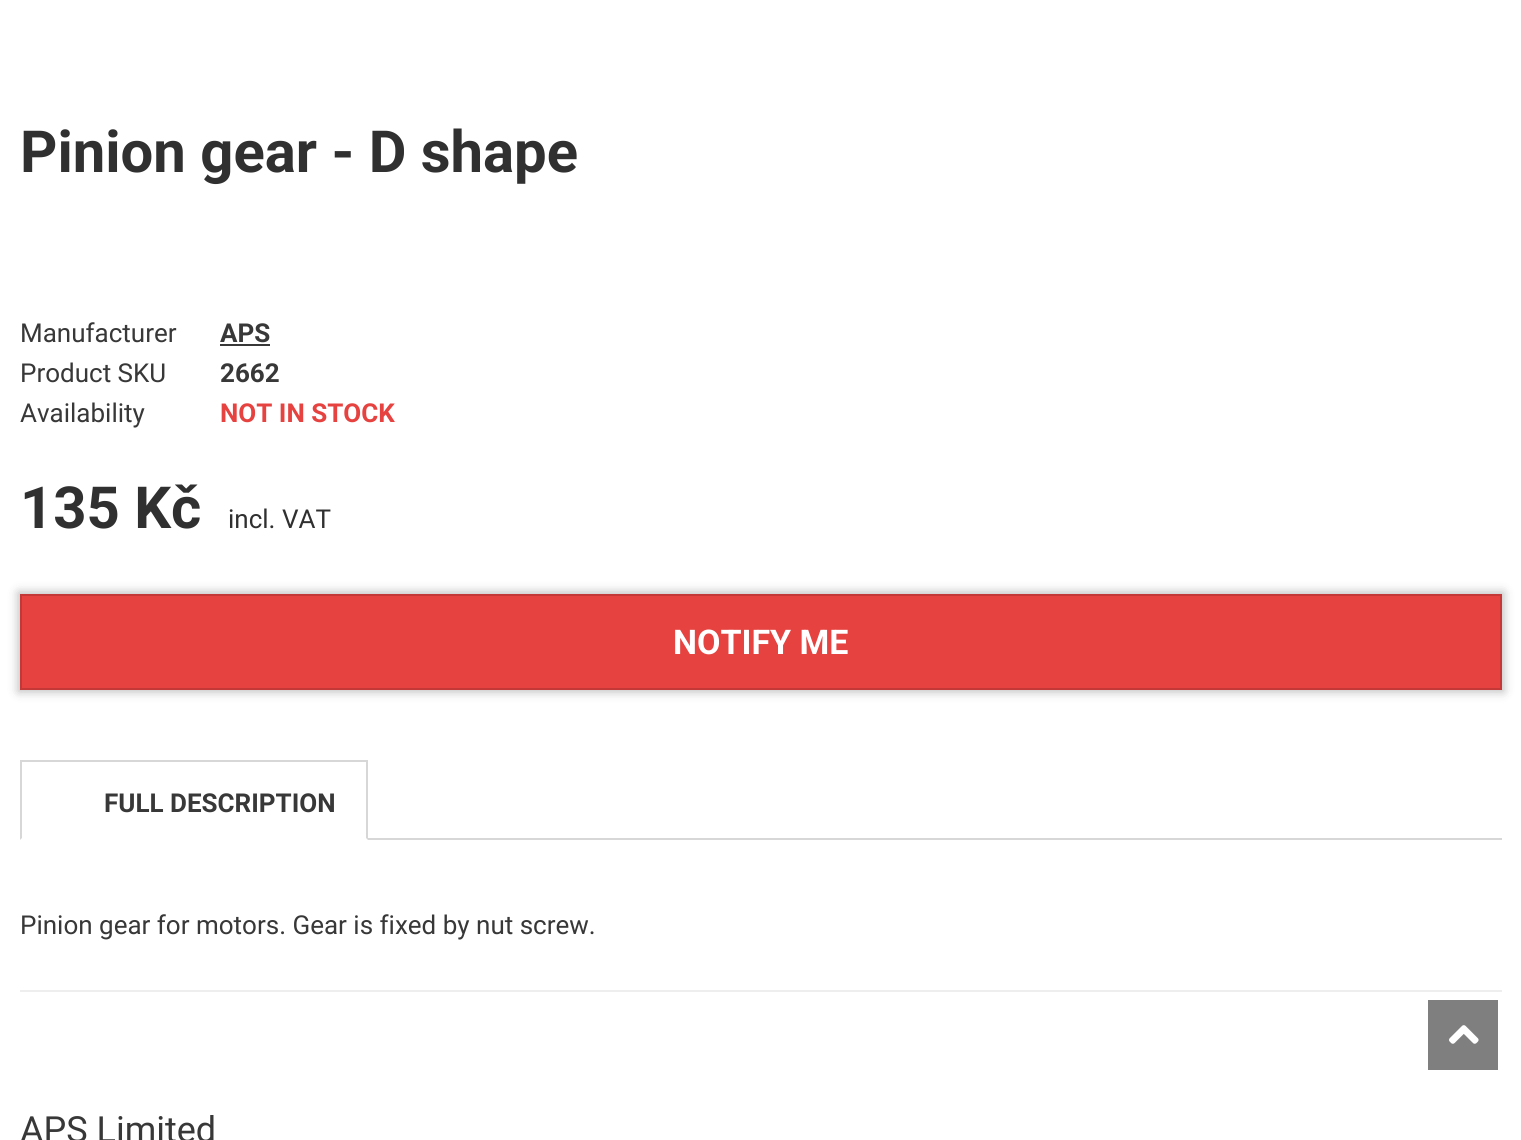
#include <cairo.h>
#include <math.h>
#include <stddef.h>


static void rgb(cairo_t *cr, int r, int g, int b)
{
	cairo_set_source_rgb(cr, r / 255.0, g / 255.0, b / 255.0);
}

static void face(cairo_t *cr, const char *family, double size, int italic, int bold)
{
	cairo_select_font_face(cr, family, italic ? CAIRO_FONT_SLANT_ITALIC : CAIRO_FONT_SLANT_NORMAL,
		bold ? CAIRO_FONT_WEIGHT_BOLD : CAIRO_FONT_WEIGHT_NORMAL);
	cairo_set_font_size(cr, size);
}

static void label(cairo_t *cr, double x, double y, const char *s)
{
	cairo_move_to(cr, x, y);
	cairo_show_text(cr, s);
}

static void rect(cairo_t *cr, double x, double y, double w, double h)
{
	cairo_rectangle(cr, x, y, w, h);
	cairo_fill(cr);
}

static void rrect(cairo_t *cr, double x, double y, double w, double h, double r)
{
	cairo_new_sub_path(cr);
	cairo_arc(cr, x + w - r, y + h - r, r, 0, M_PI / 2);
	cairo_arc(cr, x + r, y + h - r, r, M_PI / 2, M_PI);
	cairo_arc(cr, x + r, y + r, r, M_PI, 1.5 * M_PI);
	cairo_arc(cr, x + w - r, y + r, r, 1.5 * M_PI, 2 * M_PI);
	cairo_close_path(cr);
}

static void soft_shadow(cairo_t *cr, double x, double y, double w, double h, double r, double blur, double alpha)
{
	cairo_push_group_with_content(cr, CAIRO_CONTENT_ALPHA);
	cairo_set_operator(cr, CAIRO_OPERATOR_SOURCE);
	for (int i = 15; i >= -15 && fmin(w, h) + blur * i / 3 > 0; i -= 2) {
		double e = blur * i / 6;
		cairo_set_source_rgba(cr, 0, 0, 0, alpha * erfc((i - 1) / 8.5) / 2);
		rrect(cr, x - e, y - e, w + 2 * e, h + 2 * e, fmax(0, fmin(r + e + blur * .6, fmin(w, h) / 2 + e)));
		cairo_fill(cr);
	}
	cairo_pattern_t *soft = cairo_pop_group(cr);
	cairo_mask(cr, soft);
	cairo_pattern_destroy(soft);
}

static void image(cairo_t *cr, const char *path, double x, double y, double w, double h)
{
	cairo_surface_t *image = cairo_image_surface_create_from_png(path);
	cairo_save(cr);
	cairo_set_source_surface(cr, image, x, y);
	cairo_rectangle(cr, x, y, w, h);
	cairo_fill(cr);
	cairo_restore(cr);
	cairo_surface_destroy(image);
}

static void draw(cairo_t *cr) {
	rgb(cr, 255, 255, 255);
	cairo_paint(cr);
	face(cr, "Roboto", 58, 0, 1);
	rgb(cr, 48, 48, 48);
	label(cr, 20, 172, "Pinion gear - D shape");
	face(cr, "Roboto", 26, 0, 0);
	rgb(cr, 56, 56, 56);
	label(cr, 20, 342, "Manufacturer");
	face(cr, "Roboto", 26, 0, 1);
	label(cr, 220, 342, "APS");
	rect(cr, 220, 344, 50, 2);
	face(cr, "Roboto", 26, 0, 0);
	label(cr, 20, 382, "Product SKU");
	face(cr, "Roboto", 26, 0, 1);
	label(cr, 220, 382, "2662");
	face(cr, "Roboto", 26, 0, 0);
	label(cr, 20, 422, "Availability");
	face(cr, "Roboto", 26, 0, 1);
	rgb(cr, 230, 66, 64);
	label(cr, 220, 422, "NOT IN STOCK");
	face(cr, "Roboto", 58, 0, 1);
	rgb(cr, 48, 48, 48);
	label(cr, 20, 528, "135 Kč");
	face(cr, "Roboto", 26, 0, 0);
	label(cr, 228, 528, "incl. VAT");
	rgb(cr, 0, 0, 0);
	soft_shadow(cr, 18, 592, 1486, 100, 0, 5, 0.25);
	rgb(cr, 230, 66, 64);
	cairo_rectangle(cr, 21, 595, 1480, 94);
	cairo_fill_preserve(cr);
	rgb(cr, 196, 57, 55);
	cairo_stroke(cr);
	face(cr, "Roboto", 34, 0, 1);
	rgb(cr, 255, 255, 255);
	label(cr, 673, 654, "NOTIFY ME");
	rgb(cr, 215, 215, 215);
	rect(cr, 20, 760, 348, 2);
	cairo_new_path(cr);
	cairo_move_to(cr, 368, 760);
	cairo_line_to(cr, 368, 840);
	cairo_line_to(cr, 366, 838);
	cairo_line_to(cr, 366, 762);
	cairo_close_path(cr);
	cairo_fill(cr);
	cairo_new_path(cr);
	cairo_move_to(cr, 20, 840);
	cairo_line_to(cr, 20, 760);
	cairo_line_to(cr, 22, 762);
	cairo_line_to(cr, 22, 838);
	cairo_close_path(cr);
	cairo_fill(cr);
	face(cr, "Roboto", 26, 0, 1);
	rgb(cr, 56, 56, 56);
	label(cr, 104, 812, "FULL DESCRIPTION");
	rgb(cr, 215, 215, 215);
	rect(cr, 368, 838, 1134, 2);
	face(cr, "Roboto", 26, 0, 0);
	rgb(cr, 56, 56, 56);
	label(cr, 20, 934, "Pinion gear for motors. Gear is fixed by nut screw.");
	rgb(cr, 238, 238, 238);
	rect(cr, 20, 990, 1482, 2);
	face(cr, "Roboto", 36, 0, 0);
	rgb(cr, 56, 56, 56);
	label(cr, 20, 1142, "APS Limited");
	rgb(cr, 127, 127, 127);
	rect(cr, 1428, 1000, 70, 70);
	image(cr, "image0.png", 1449, 1025, 30, 19);
}

int main(void) {
	cairo_surface_t *surface = cairo_image_surface_create(CAIRO_FORMAT_RGB24, 1521, 1140);
	cairo_t *cr = cairo_create(surface);
	cairo_font_options_t *options = cairo_font_options_create();
	cairo_font_options_set_hint_metrics(options, CAIRO_HINT_METRICS_OFF);
	cairo_font_options_set_hint_style(options, CAIRO_HINT_STYLE_NONE);
	cairo_set_font_options(cr, options);
	cairo_set_miter_limit(cr, 4);
	draw(cr);
	cairo_surface_write_to_png(surface, "render.png");
	cairo_font_options_destroy(options);
	cairo_destroy(cr);
	cairo_surface_destroy(surface);
	return 0;
}
